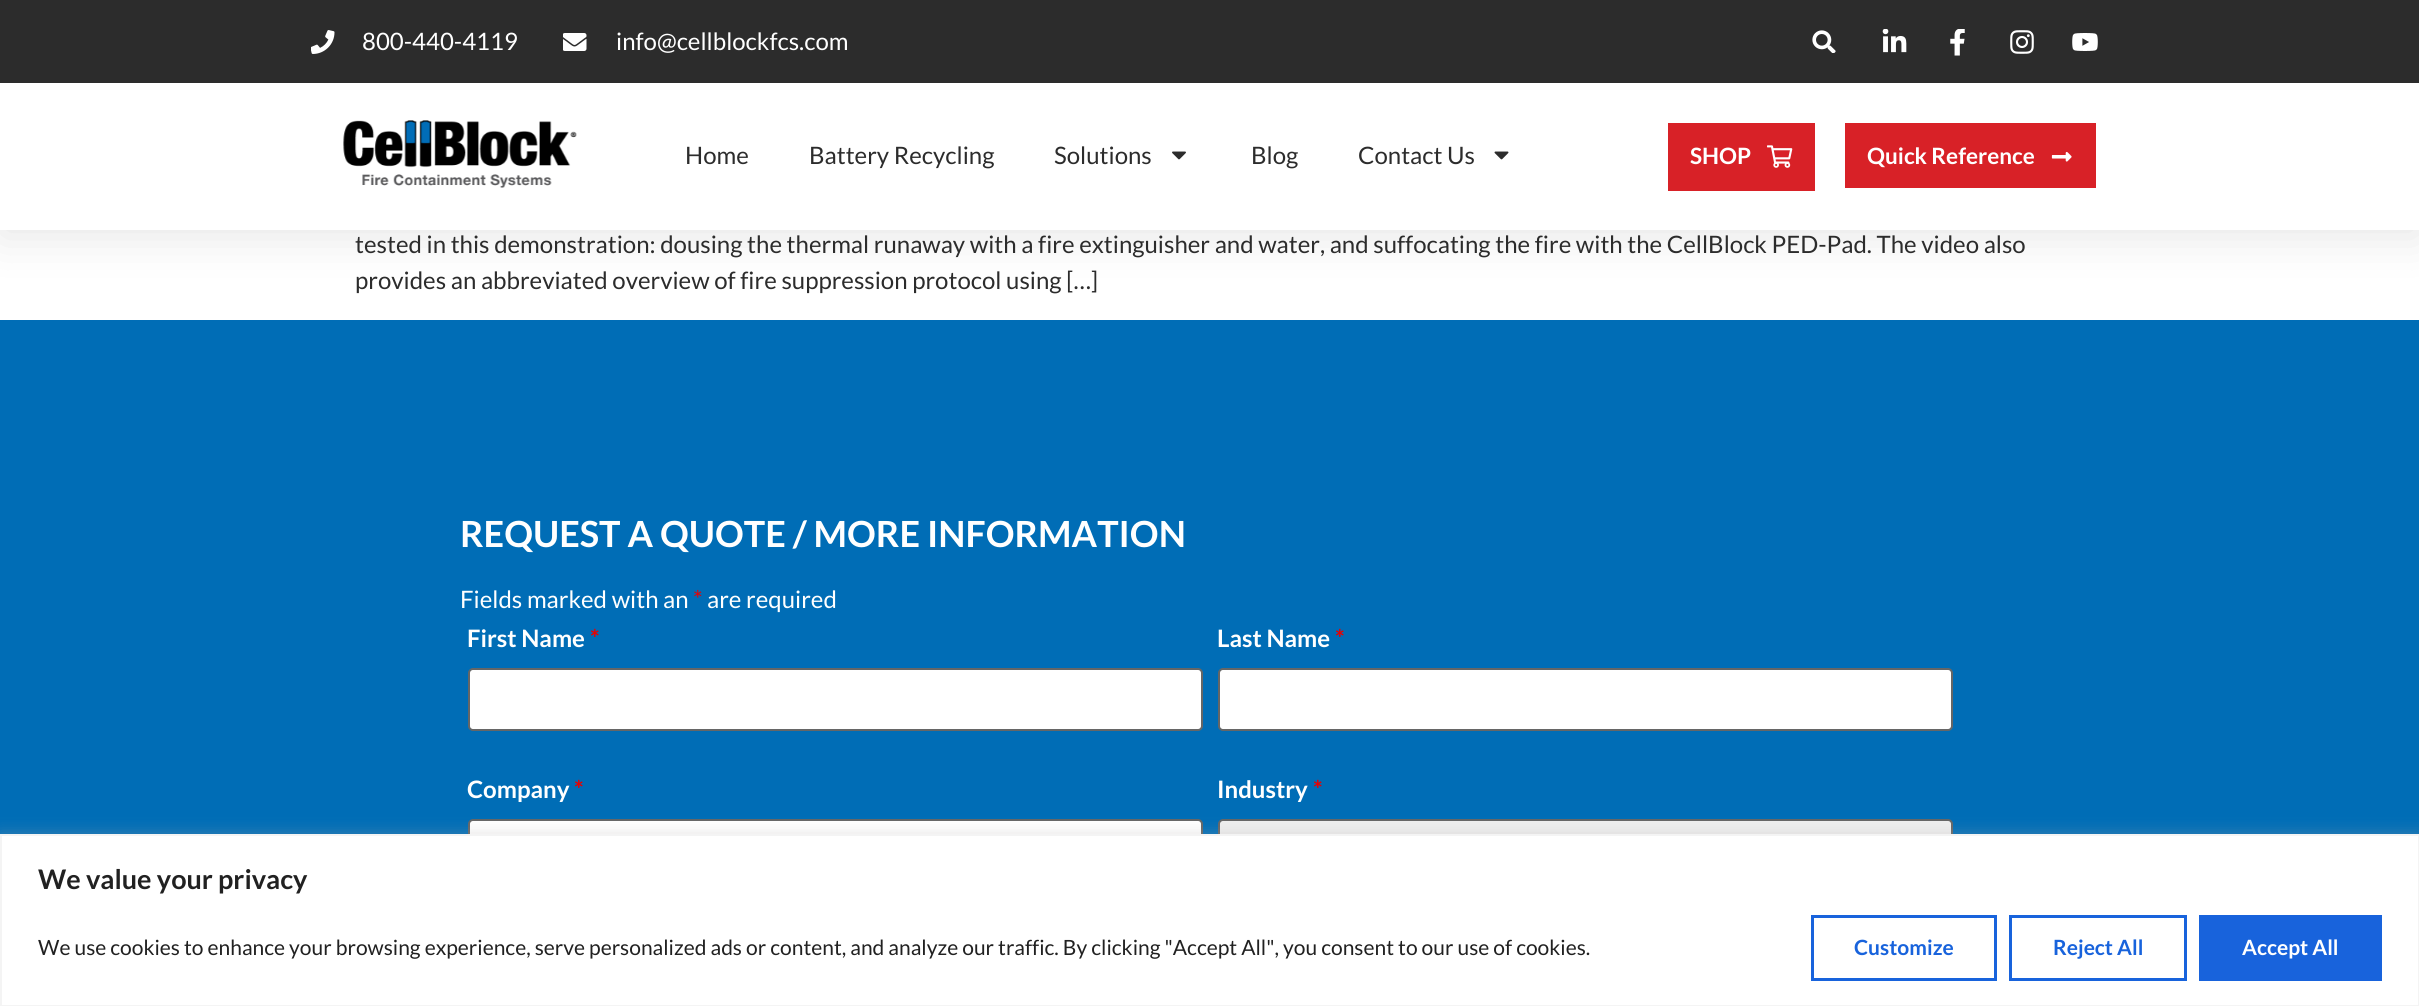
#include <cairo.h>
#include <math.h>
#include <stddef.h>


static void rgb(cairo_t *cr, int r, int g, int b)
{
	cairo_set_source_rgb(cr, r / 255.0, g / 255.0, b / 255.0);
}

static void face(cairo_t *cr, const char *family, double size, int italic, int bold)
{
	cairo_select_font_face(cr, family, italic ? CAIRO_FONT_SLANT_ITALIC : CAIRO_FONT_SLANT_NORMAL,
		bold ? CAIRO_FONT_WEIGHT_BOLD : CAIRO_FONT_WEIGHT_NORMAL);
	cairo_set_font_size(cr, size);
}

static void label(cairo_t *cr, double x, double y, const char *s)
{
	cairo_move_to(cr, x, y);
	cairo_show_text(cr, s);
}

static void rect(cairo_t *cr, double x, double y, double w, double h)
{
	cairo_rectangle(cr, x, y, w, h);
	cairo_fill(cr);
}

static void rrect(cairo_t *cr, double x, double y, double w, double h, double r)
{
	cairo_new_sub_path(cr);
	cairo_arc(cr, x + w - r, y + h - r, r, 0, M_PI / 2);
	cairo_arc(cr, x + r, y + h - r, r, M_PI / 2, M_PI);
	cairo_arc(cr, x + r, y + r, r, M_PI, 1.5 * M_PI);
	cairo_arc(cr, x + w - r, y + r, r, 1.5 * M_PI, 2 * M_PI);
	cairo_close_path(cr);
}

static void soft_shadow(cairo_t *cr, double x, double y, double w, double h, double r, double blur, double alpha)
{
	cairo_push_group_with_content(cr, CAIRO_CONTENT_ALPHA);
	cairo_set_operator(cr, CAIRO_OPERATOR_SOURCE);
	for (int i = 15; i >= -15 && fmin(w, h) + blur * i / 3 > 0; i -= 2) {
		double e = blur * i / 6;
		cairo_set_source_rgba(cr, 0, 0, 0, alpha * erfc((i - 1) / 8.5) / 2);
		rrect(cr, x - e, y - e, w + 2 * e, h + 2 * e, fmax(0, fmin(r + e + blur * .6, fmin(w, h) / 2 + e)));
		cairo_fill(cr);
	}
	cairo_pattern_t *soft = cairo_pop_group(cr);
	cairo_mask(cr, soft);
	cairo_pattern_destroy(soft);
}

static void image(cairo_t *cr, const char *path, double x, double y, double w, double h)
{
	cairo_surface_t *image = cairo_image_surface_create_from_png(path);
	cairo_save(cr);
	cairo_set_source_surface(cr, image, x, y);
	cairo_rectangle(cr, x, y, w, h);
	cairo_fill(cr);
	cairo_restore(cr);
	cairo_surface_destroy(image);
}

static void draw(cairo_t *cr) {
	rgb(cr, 255, 255, 255);
	cairo_paint(cr);
	rgb(cr, 0, 0, 0);
	soft_shadow(cr, 0, 8, 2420, 229, 0, 22.5, 0.1);
	rgb(cr, 44, 44, 44);
	rect(cr, 0, 0, 2419, 83);
	image(cr, "image0.png", 311, 30, 24, 24);
	face(cr, "Lato", 24, 0, 0);
	rgb(cr, 255, 255, 255);
	label(cr, 362, 50, "800-440-4119");
	image(cr, "image1.png", 563, 33, 24, 18);
	label(cr, 616, 50, "info@cellblockfcs.com");
	image(cr, "image2.png", 1812, 30, 24, 23);
	image(cr, "image3.png", 1882, 29, 25, 24);
	image(cr, "image4.png", 1950, 29, 15, 27);
	image(cr, "image5.png", 2010, 30, 24, 24);
	image(cr, "image6.png", 2072, 33, 26, 18);
	rect(cr, 0, 83, 2419, 147);
	image(cr, "image7.png", 343, 120, 234, 68);
	rgb(cr, 44, 44, 44);
	label(cr, 685, 164, "Home");
	label(cr, 809, 164, "Battery Recycling");
	label(cr, 1054, 164, "Solutions");
	image(cr, "image8.png", 1172, 151, 14, 9);
	label(cr, 1251, 164, "Blog");
	label(cr, 1358, 164, "Contact Us");
	image(cr, "image9.png", 1494, 151, 15, 9);
	rgb(cr, 216, 33, 39);
	rect(cr, 1668, 123, 147, 68);
	face(cr, "Lato", 22.5, 0, 1);
	rgb(cr, 255, 255, 255);
	label(cr, 1690, 164, "SHOP");
	image(cr, "image10.png", 1767, 145, 26, 23);
	rgb(cr, 216, 33, 39);
	rect(cr, 1845, 123, 251, 65);
	rgb(cr, 255, 255, 255);
	label(cr, 1867, 164, "Quick Reference");
	image(cr, "image11.png", 2051, 151, 21, 11);
	face(cr, "Lato", 24, 0, 0);
	rgb(cr, 44, 44, 44);
	label(cr, 355, 253, "tested in this demonstration: dousing the thermal runaway with a fire extinguisher and water, and suffocating the fire with the CellBlock PED-Pad. The video also");
	label(cr, 355, 289, "provides an abbreviated overview of fire suppression protocol using […]");
	rgb(cr, 0, 109, 182);
	rect(cr, 0, 320, 2419, 514);
	face(cr, "Lato", 36, 0, 1);
	rgb(cr, 255, 255, 255);
	label(cr, 460, 547, "REQUEST A QUOTE / MORE INFORMATION");
	face(cr, "Lato", 24, 0, 0);
	label(cr, 460, 608, "Fields marked with an");
	rgb(cr, 232, 0, 0);
	label(cr, 693, 608, "*");
	rgb(cr, 255, 255, 255);
	label(cr, 707, 608, "are required");
	face(cr, "Lato", 24, 0, 1);
	label(cr, 467, 647, "First Name");
	rgb(cr, 232, 0, 0);
	label(cr, 590, 647, "*");
	rgb(cr, 255, 255, 255);
	rrect(cr, 469, 669, 733, 61, 4);
	cairo_fill_preserve(cr);
	rgb(cr, 102, 102, 102);
	cairo_stroke(cr);
	rgb(cr, 255, 255, 255);
	label(cr, 1217, 647, "Last Name");
	rgb(cr, 232, 0, 0);
	label(cr, 1335, 647, "*");
	rgb(cr, 255, 255, 255);
	rrect(cr, 1219, 669, 733, 61, 4);
	cairo_fill_preserve(cr);
	rgb(cr, 102, 102, 102);
	cairo_stroke(cr);
	rgb(cr, 255, 255, 255);
	label(cr, 467, 798, "Company");
	rgb(cr, 232, 0, 0);
	label(cr, 574, 798, "*");
	rgb(cr, 255, 255, 255);
	rrect(cr, 469, 820, 733, 61, 4);
	cairo_fill_preserve(cr);
	rgb(cr, 102, 102, 102);
	cairo_stroke(cr);
	rgb(cr, 255, 255, 255);
	label(cr, 1217, 798, "Industry");
	rgb(cr, 232, 0, 0);
	label(cr, 1313, 798, "*");
	rgb(cr, 239, 239, 239);
	rrect(cr, 1219, 820, 733, 57, 4);
	cairo_fill_preserve(cr);
	rgb(cr, 102, 102, 102);
	cairo_stroke(cr);
	rgb(cr, 172, 171, 171);
	soft_shadow(cr, 0, 833, 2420, 172, 0, 7.5, 0.3);
	rgb(cr, 255, 255, 255);
	cairo_rectangle(cr, 1, 835, 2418, 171);
	cairo_fill_preserve(cr);
	rgb(cr, 244, 244, 244);
	cairo_stroke(cr);
	face(cr, "Lato", 27, 0, 1);
	rgb(cr, 33, 33, 33);
	label(cr, 38, 889, "We value your privacy");
	face(cr, "Lato", 21, 0, 0);
	label(cr, 38, 955, "We use cookies to enhance your browsing experience, serve personalized ads or content, and analyze our traffic. By clicking \"Accept All\", you consent to our use of cookies.");
	cairo_rectangle(cr, 1812.5, 916.5, 183, 63);
	rgb(cr, 24, 99, 220);
	cairo_set_line_width(cr, 3);
	cairo_stroke(cr);
	face(cr, "Lato", 21, 0, 1);
	label(cr, 1854, 955, "Customize");
	cairo_rectangle(cr, 2010.5, 916.5, 175, 63);
	cairo_stroke(cr);
	label(cr, 2053, 955, "Reject All");
	rect(cr, 2199, 915, 183, 66);
	rgb(cr, 255, 255, 255);
	label(cr, 2242, 955, "Accept All");
}

int main(void) {
	cairo_surface_t *surface = cairo_image_surface_create(CAIRO_FORMAT_RGB24, 2419, 1006);
	cairo_t *cr = cairo_create(surface);
	cairo_font_options_t *options = cairo_font_options_create();
	cairo_font_options_set_hint_metrics(options, CAIRO_HINT_METRICS_OFF);
	cairo_font_options_set_hint_style(options, CAIRO_HINT_STYLE_NONE);
	cairo_set_font_options(cr, options);
	cairo_set_miter_limit(cr, 4);
	draw(cr);
	cairo_surface_write_to_png(surface, "render.png");
	cairo_font_options_destroy(options);
	cairo_destroy(cr);
	cairo_surface_destroy(surface);
	return 0;
}
